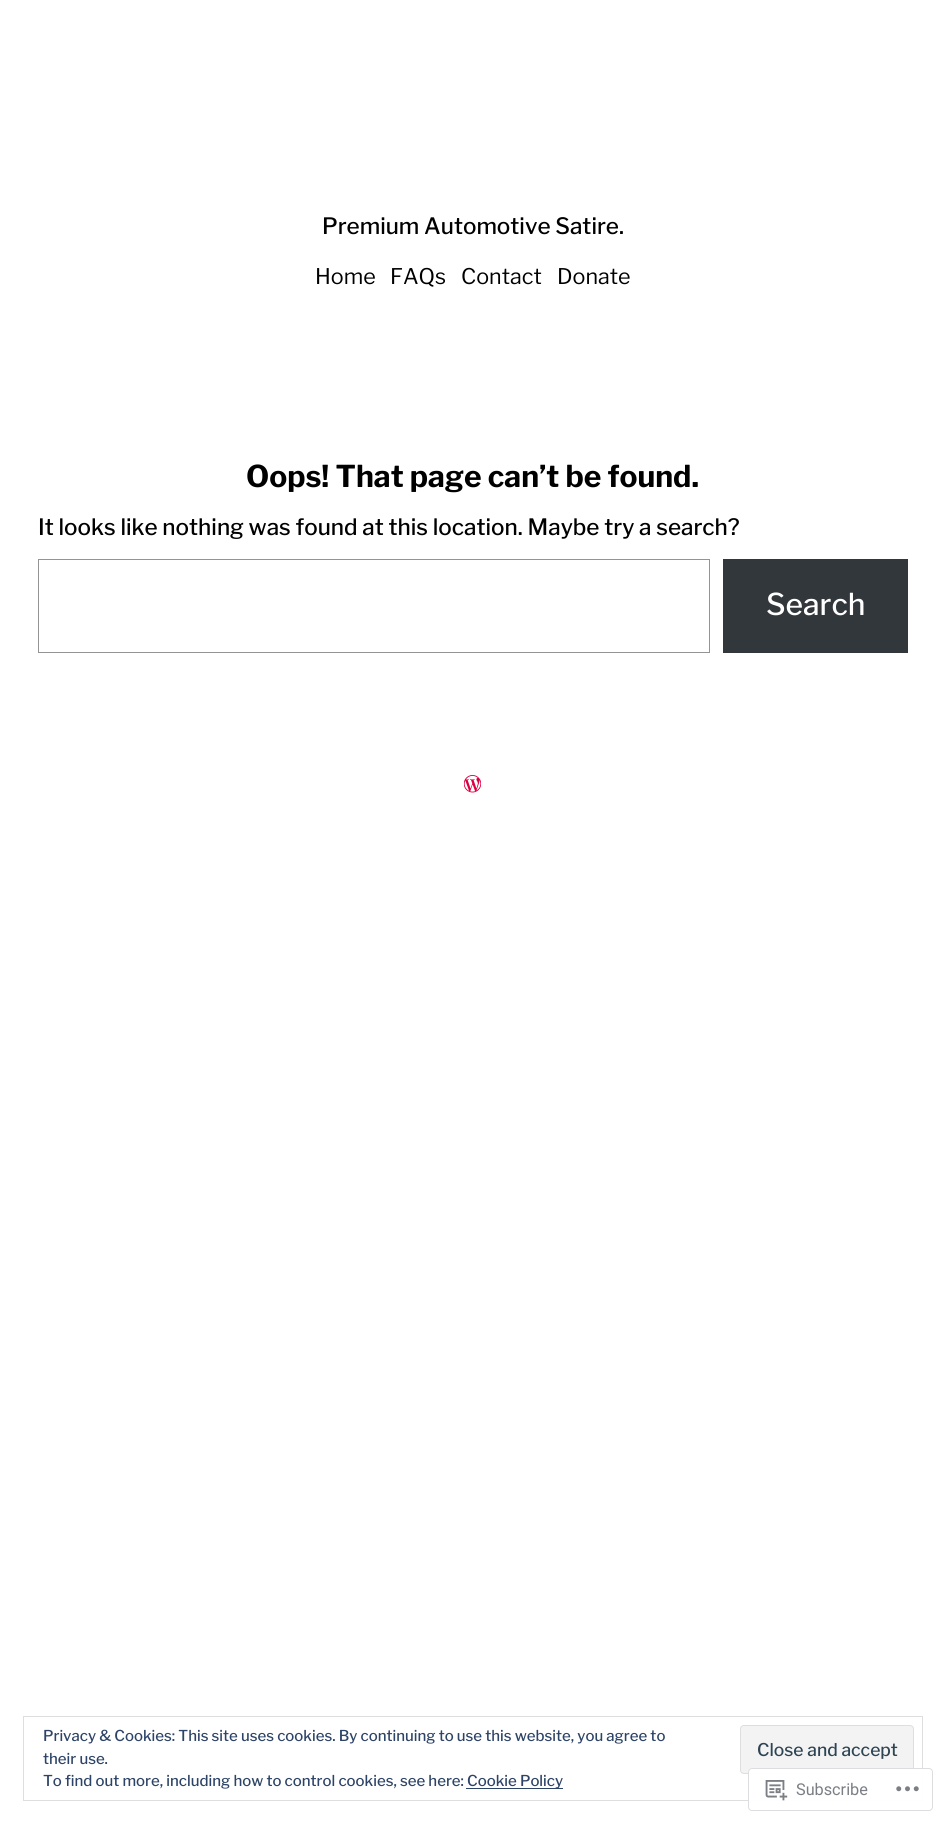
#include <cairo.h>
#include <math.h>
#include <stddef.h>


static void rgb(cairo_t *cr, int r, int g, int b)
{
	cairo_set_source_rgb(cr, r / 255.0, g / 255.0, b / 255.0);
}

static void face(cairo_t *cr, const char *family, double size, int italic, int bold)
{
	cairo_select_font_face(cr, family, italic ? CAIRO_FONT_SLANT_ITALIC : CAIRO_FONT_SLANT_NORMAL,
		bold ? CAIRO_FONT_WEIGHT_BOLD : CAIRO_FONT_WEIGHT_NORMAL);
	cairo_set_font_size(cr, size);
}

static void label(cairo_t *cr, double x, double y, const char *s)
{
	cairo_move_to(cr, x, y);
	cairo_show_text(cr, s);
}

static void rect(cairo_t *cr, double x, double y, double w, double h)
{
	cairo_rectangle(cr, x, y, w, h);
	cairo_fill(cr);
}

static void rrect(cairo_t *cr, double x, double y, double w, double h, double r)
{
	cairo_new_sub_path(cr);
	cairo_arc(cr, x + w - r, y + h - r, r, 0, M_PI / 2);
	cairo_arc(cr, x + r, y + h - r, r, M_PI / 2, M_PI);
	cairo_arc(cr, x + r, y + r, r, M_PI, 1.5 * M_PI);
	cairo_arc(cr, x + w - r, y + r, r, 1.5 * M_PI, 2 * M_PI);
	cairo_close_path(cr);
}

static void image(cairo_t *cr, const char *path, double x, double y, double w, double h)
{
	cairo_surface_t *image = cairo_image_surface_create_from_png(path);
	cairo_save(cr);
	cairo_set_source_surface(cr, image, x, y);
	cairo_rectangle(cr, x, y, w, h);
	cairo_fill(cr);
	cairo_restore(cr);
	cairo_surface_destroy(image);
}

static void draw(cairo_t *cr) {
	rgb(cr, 255, 255, 255);
	cairo_paint(cr);
	face(cr, "Libre Franklin Medium", 22.5, 0, 0);
	rgb(cr, 0, 0, 0);
	label(cr, 322, 234, "Premium Automotive Satire.");
	face(cr, "Libre Franklin", 21.5, 0, 0);
	label(cr, 315, 284, "Home");
	label(cr, 390, 284, "FAQs");
	label(cr, 461, 284, "Contact");
	label(cr, 557, 284, "Donate");
	face(cr, "Libre Franklin", 30, 0, 1);
	label(cr, 246, 487, "Oops! That page can’t be found.");
	face(cr, "Libre Franklin Medium", 22.5, 0, 0);
	label(cr, 38, 535, "It looks like nothing was found at this location. Maybe try a search?");
	cairo_rectangle(cr, 38.5, 559.5, 671, 93);
	rgb(cr, 148, 148, 148);
	cairo_set_line_width(cr, 1);
	cairo_stroke(cr);
	rgb(cr, 50, 55, 60);
	rect(cr, 723, 559, 185, 94);
	face(cr, "Libre Franklin Medium", 30, 0, 0);
	rgb(cr, 255, 255, 255);
	label(cr, 766, 615, "Search");
	image(cr, "image0.png", 464, 775, 17, 18);
	cairo_rectangle(cr, 23.5, 1716.5, 899, 84);
	rgb(cr, 222, 222, 222);
	cairo_stroke(cr);
	face(cr, "Libre Franklin Medium", 15, 0, 0);
	rgb(cr, 46, 68, 103);
	label(cr, 43, 1741, "Privacy & Cookies: This site uses cookies. By continuing to use this website, you agree to");
	label(cr, 43, 1764, "their use.");
	rgb(cr, 243, 243, 243);
	rrect(cr, 740.5, 1725.5, 173, 48, 3.5);
	cairo_fill_preserve(cr);
	rgb(cr, 222, 222, 222);
	cairo_stroke(cr);
	face(cr, "Libre Franklin Medium", 17.5, 0, 0);
	rgb(cr, 46, 68, 83);
	label(cr, 757, 1756, "Close and accept");
	face(cr, "Libre Franklin Medium", 15, 0, 0);
	rgb(cr, 46, 68, 103);
	label(cr, 43, 1786, "To find out more, including how to control cookies, see here:");
	rect(cr, 466, 1788, 97, 1);
	label(cr, 467, 1786, "Cookie Policy");
	cairo_set_source_rgba(cr, 1, 1, 1, 0.98);
	rrect(cr, 748, 1768, 185, 43, 4);
	cairo_fill(cr);
	rrect(cr, 748.5, 1768.5, 184, 42, 3.5);
	cairo_set_source_rgba(cr, 0.863, 0.863, 0.871, 0.98);
	cairo_stroke(cr);
	image(cr, "image1.png", 765, 1780, 23, 21);
	face(cr, "Roboto", 16.25, 0, 0);
	rgb(cr, 123, 127, 133);
	label(cr, 796, 1795, "Subscribe");
	image(cr, "image2.png", 896, 1786, 23, 6);
}

int main(void) {
	cairo_surface_t *surface = cairo_image_surface_create(CAIRO_FORMAT_RGB24, 944, 1823);
	cairo_t *cr = cairo_create(surface);
	cairo_font_options_t *options = cairo_font_options_create();
	cairo_font_options_set_hint_metrics(options, CAIRO_HINT_METRICS_OFF);
	cairo_font_options_set_hint_style(options, CAIRO_HINT_STYLE_NONE);
	cairo_set_font_options(cr, options);
	cairo_set_miter_limit(cr, 4);
	draw(cr);
	cairo_surface_write_to_png(surface, "render.png");
	cairo_font_options_destroy(options);
	cairo_destroy(cr);
	cairo_surface_destroy(surface);
	return 0;
}
